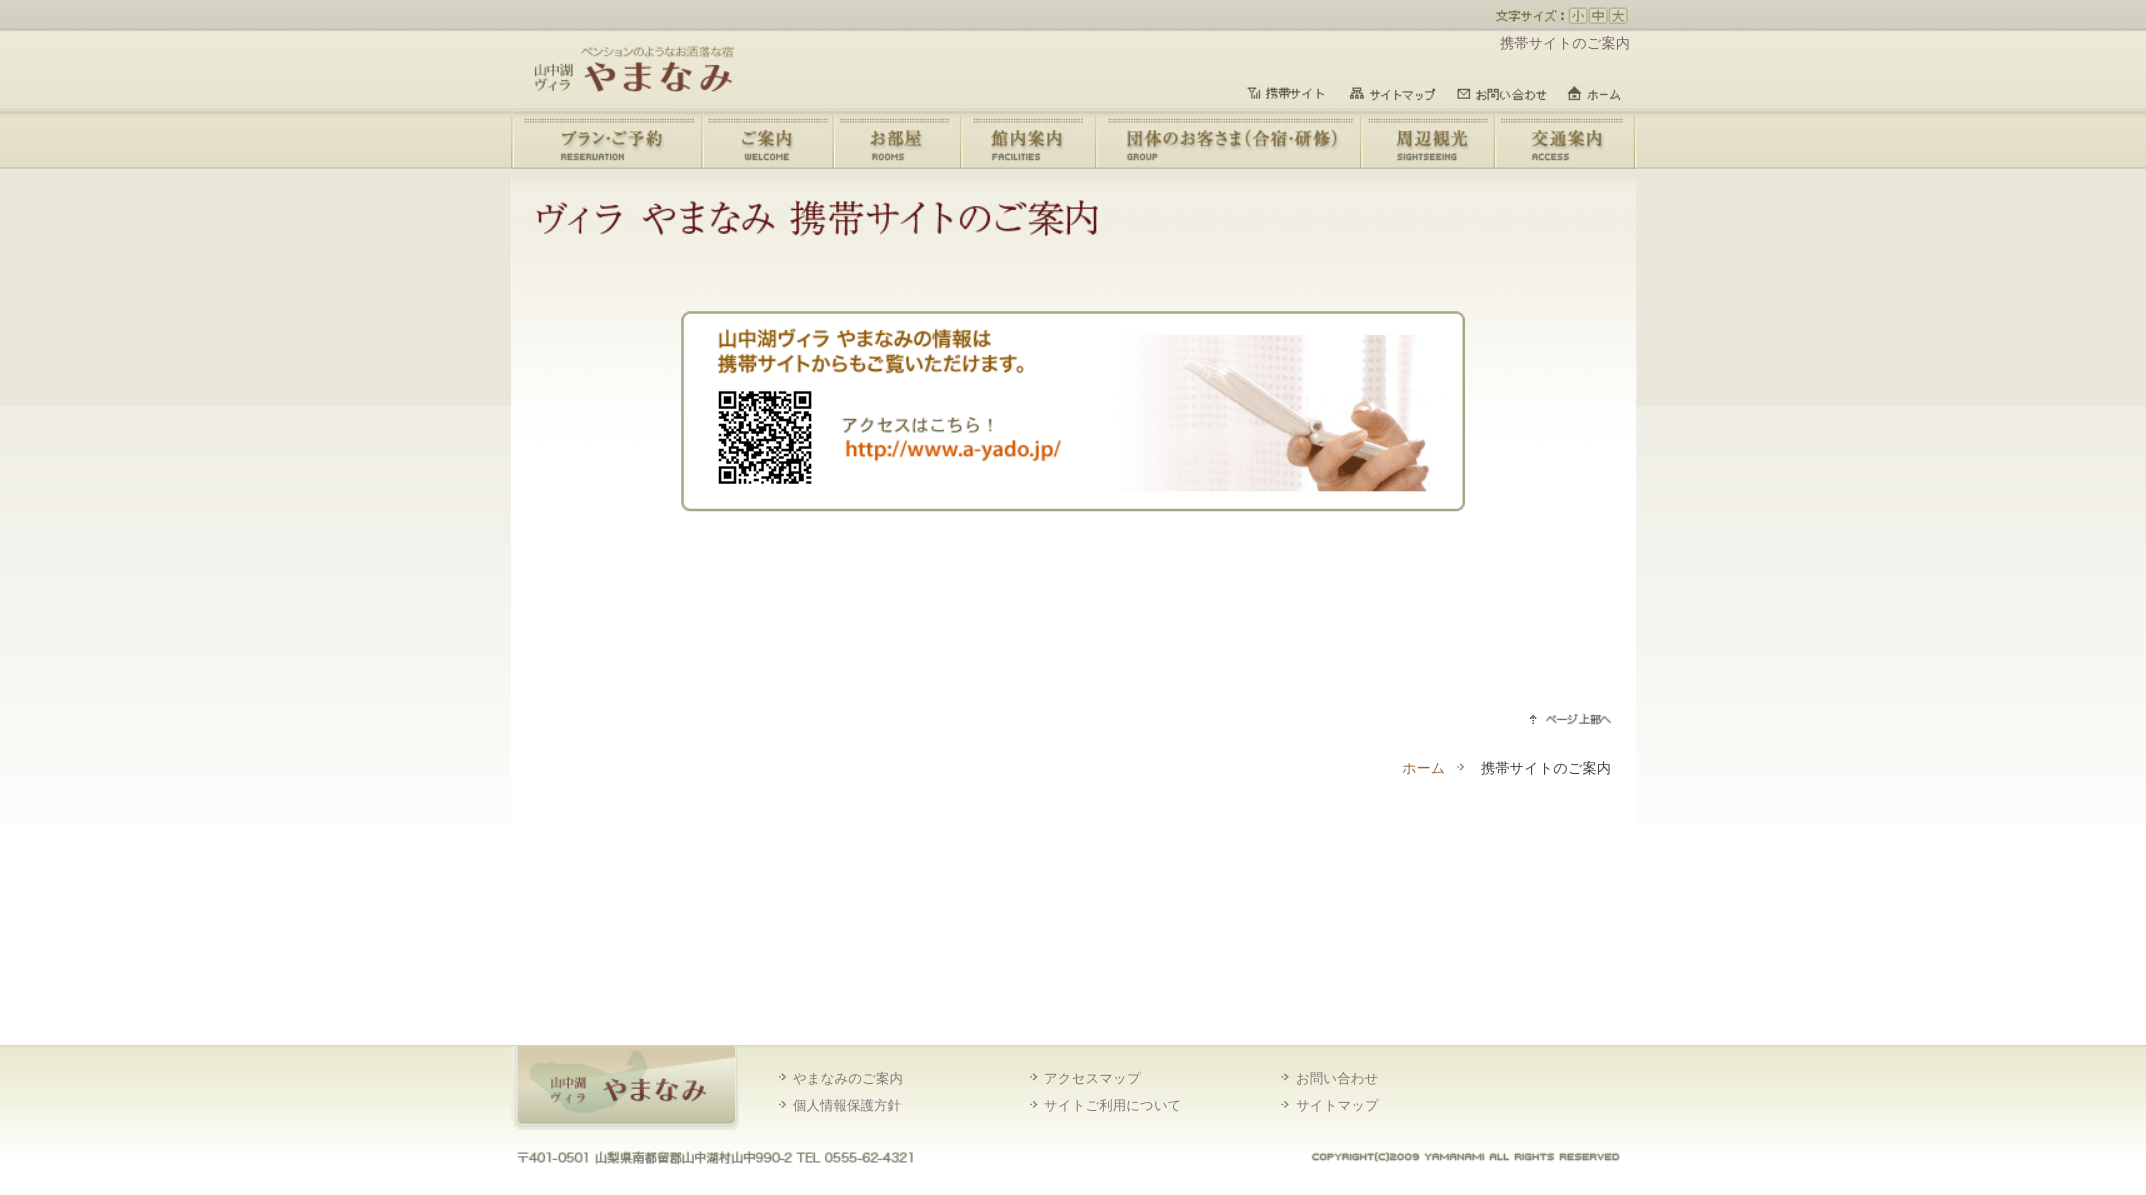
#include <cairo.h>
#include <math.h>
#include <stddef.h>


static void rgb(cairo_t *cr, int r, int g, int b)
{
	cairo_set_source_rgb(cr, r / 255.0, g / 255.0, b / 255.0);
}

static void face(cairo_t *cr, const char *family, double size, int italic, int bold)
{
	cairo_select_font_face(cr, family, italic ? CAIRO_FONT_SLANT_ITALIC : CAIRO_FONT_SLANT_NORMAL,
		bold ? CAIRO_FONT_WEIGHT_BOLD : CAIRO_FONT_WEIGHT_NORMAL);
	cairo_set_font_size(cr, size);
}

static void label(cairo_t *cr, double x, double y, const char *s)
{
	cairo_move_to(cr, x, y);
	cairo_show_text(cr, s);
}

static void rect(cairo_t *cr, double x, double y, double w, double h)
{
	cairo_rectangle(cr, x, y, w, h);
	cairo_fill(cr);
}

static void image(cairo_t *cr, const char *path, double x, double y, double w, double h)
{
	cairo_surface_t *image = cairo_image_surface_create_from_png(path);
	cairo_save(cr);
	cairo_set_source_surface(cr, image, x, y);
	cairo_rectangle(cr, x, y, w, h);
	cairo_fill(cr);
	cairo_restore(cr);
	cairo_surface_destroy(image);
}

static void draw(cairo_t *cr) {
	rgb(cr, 255, 255, 255);
	cairo_paint(cr);
	image(cr, "image0.png", 0, 0, 2146, 169);
	image(cr, "image1.png", 0, 168, 2146, 656);
	image(cr, "image2.png", 511, 0, 1125, 169);
	image(cr, "image3.png", 1496, 9, 68, 13);
	image(cr, "image4.png", 1568, 5, 21, 20);
	image(cr, "image5.png", 1588, 5, 21, 20);
	image(cr, "image6.png", 1608, 5, 20, 20);
	image(cr, "image7.png", 1247, 87, 77, 12);
	image(cr, "image8.png", 1349, 87, 87, 14);
	image(cr, "image10.png", 1567, 86, 54, 15);
	image(cr, "image9.png", 1457, 88, 111, 13);
	face(cr, "WenQuanYi Zen Hei Medium", 14.25, 0, 0);
	rgb(cr, 119, 102, 102);
	label(cr, 1500, 48, "携帯サイトのご案内");
	image(cr, "image11.png", 534, 46, 200, 47);
	image(cr, "image12.png", 511, 110, 1126, 59);
	rgb(cr, 255, 255, 255);
	rect(cr, 511, 175, 1125, 649);
	image(cr, "image13.png", 511, 175, 1126, 449);
	image(cr, "image14.png", 536, 200, 562, 37);
	image(cr, "image15.png", 681, 311, 784, 201);
	image(cr, "image16.png", 1530, 713, 82, 12);
	rgb(cr, 153, 102, 51);
	label(cr, 1402, 773, "ホーム");
	image(cr, "image17.png", 1457, 763, 7, 8);
	rgb(cr, 64, 64, 64);
	label(cr, 1481, 773, "携帯サイトのご案内");
	image(cr, "image18.png", 0, 1045, 2146, 109);
	image(cr, "image19.png", 511, 1046, 228, 84);
	image(cr, "image20.png", 779, 1073, 7, 8);
	face(cr, "WenQuanYi Zen Hei Medium", 13.5, 0, 0);
	rgb(cr, 133, 117, 117);
	label(cr, 793, 1083, "やまなみのご案内");
	image(cr, "image21.png", 1030, 1073, 8, 8);
	label(cr, 1044, 1083, "アクセスマップ");
	image(cr, "image22.png", 1281, 1073, 8, 8);
	label(cr, 1296, 1083, "お問い合わせ");
	image(cr, "image23.png", 779, 1101, 7, 7);
	label(cr, 793, 1110, "個人情報保護方針");
	image(cr, "image24.png", 1030, 1101, 8, 7);
	label(cr, 1044, 1110, "サイトご利用について");
	image(cr, "image25.png", 1281, 1101, 8, 7);
	label(cr, 1296, 1110, "サイトマップ");
	image(cr, "image26.png", 517, 1151, 396, 14);
	image(cr, "image27.png", 1311, 1151, 309, 12);
}

int main(void) {
	cairo_surface_t *surface = cairo_image_surface_create(CAIRO_FORMAT_RGB24, 2146, 1195);
	cairo_t *cr = cairo_create(surface);
	cairo_font_options_t *options = cairo_font_options_create();
	cairo_font_options_set_hint_metrics(options, CAIRO_HINT_METRICS_OFF);
	cairo_font_options_set_hint_style(options, CAIRO_HINT_STYLE_NONE);
	cairo_set_font_options(cr, options);
	cairo_set_miter_limit(cr, 4);
	draw(cr);
	cairo_surface_write_to_png(surface, "render.png");
	cairo_font_options_destroy(options);
	cairo_destroy(cr);
	cairo_surface_destroy(surface);
	return 0;
}
